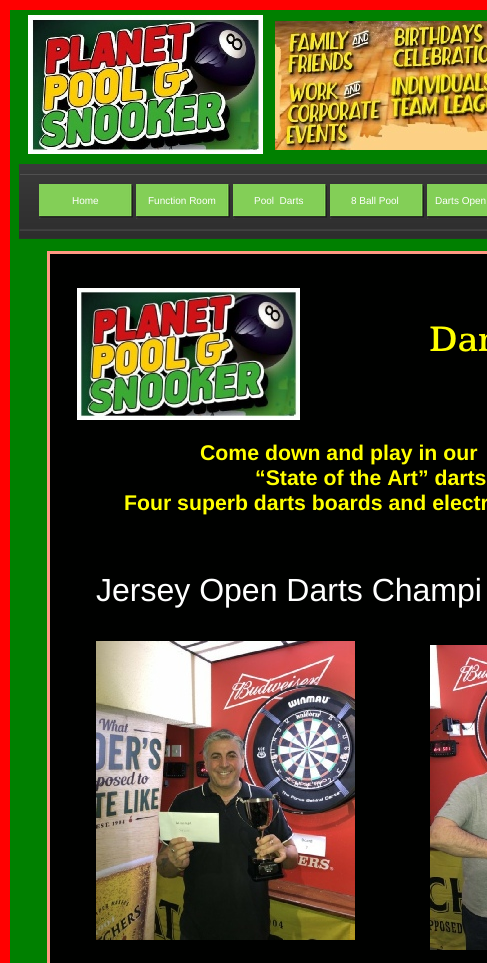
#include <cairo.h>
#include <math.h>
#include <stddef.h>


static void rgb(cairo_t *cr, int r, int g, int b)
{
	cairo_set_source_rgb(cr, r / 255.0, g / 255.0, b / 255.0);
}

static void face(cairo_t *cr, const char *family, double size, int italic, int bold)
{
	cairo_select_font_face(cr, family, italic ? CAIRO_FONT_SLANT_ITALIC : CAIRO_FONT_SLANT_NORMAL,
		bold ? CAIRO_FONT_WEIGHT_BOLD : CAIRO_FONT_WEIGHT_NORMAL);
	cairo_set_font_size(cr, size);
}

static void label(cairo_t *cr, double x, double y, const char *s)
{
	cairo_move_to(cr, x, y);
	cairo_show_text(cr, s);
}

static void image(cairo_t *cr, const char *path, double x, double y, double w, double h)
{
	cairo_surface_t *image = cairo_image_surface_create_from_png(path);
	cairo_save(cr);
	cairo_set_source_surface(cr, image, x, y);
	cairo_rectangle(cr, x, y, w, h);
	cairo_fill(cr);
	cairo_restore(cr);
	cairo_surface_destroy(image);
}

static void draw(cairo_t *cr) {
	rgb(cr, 255, 255, 255);
	cairo_paint(cr);
	image(cr, "image0.png", 0, 0, 487, 963);
	image(cr, "image1.png", 28, 15, 235, 139);
	image(cr, "image2.png", 275, 21, 212, 129);
	image(cr, "image3.png", 19, 164, 468, 75);
	image(cr, "image4.png", 39, 184, 94, 35);
	face(cr, "Liberation Sans", 10, 0, 0);
	rgb(cr, 255, 255, 255);
	label(cr, 72, 204, "Home");
	image(cr, "image4.png", 136, 184, 94, 35);
	label(cr, 148, 204, "Function Room");
	image(cr, "image4.png", 233, 184, 94, 35);
	label(cr, 254, 204, "Pool  Darts");
	image(cr, "image4.png", 330, 184, 94, 35);
	label(cr, 351, 204, "8 Ball Pool");
	image(cr, "image5.png", 427, 184, 60, 35);
	label(cr, 435, 204, "Darts Open");
	image(cr, "image6.png", 47, 251, 440, 712);
	image(cr, "image7.png", 77, 288, 223, 132);
	image(cr, "image8.png", 430, 326, 57, 26);
	face(cr, "Liberation Sans", 21.25, 0, 1);
	rgb(cr, 255, 255, 0);
	label(cr, 200, 460, "Come down and play in our");
	label(cr, 255, 485, "“State of the Art” darts");
	label(cr, 124, 510, "Four superb darts boards and electr");
	face(cr, "Liberation Sans", 32, 0, 0);
	rgb(cr, 255, 255, 255);
	label(cr, 96, 601, "Jersey Open Darts Champi");
	image(cr, "image9.png", 96, 641, 259, 299);
	image(cr, "image10.png", 430, 645, 57, 305);
}

int main(void) {
	cairo_surface_t *surface = cairo_image_surface_create(CAIRO_FORMAT_RGB24, 487, 963);
	cairo_t *cr = cairo_create(surface);
	cairo_font_options_t *options = cairo_font_options_create();
	cairo_font_options_set_hint_metrics(options, CAIRO_HINT_METRICS_OFF);
	cairo_font_options_set_hint_style(options, CAIRO_HINT_STYLE_NONE);
	cairo_set_font_options(cr, options);
	cairo_set_miter_limit(cr, 4);
	draw(cr);
	cairo_surface_write_to_png(surface, "render.png");
	cairo_font_options_destroy(options);
	cairo_destroy(cr);
	cairo_surface_destroy(surface);
	return 0;
}
